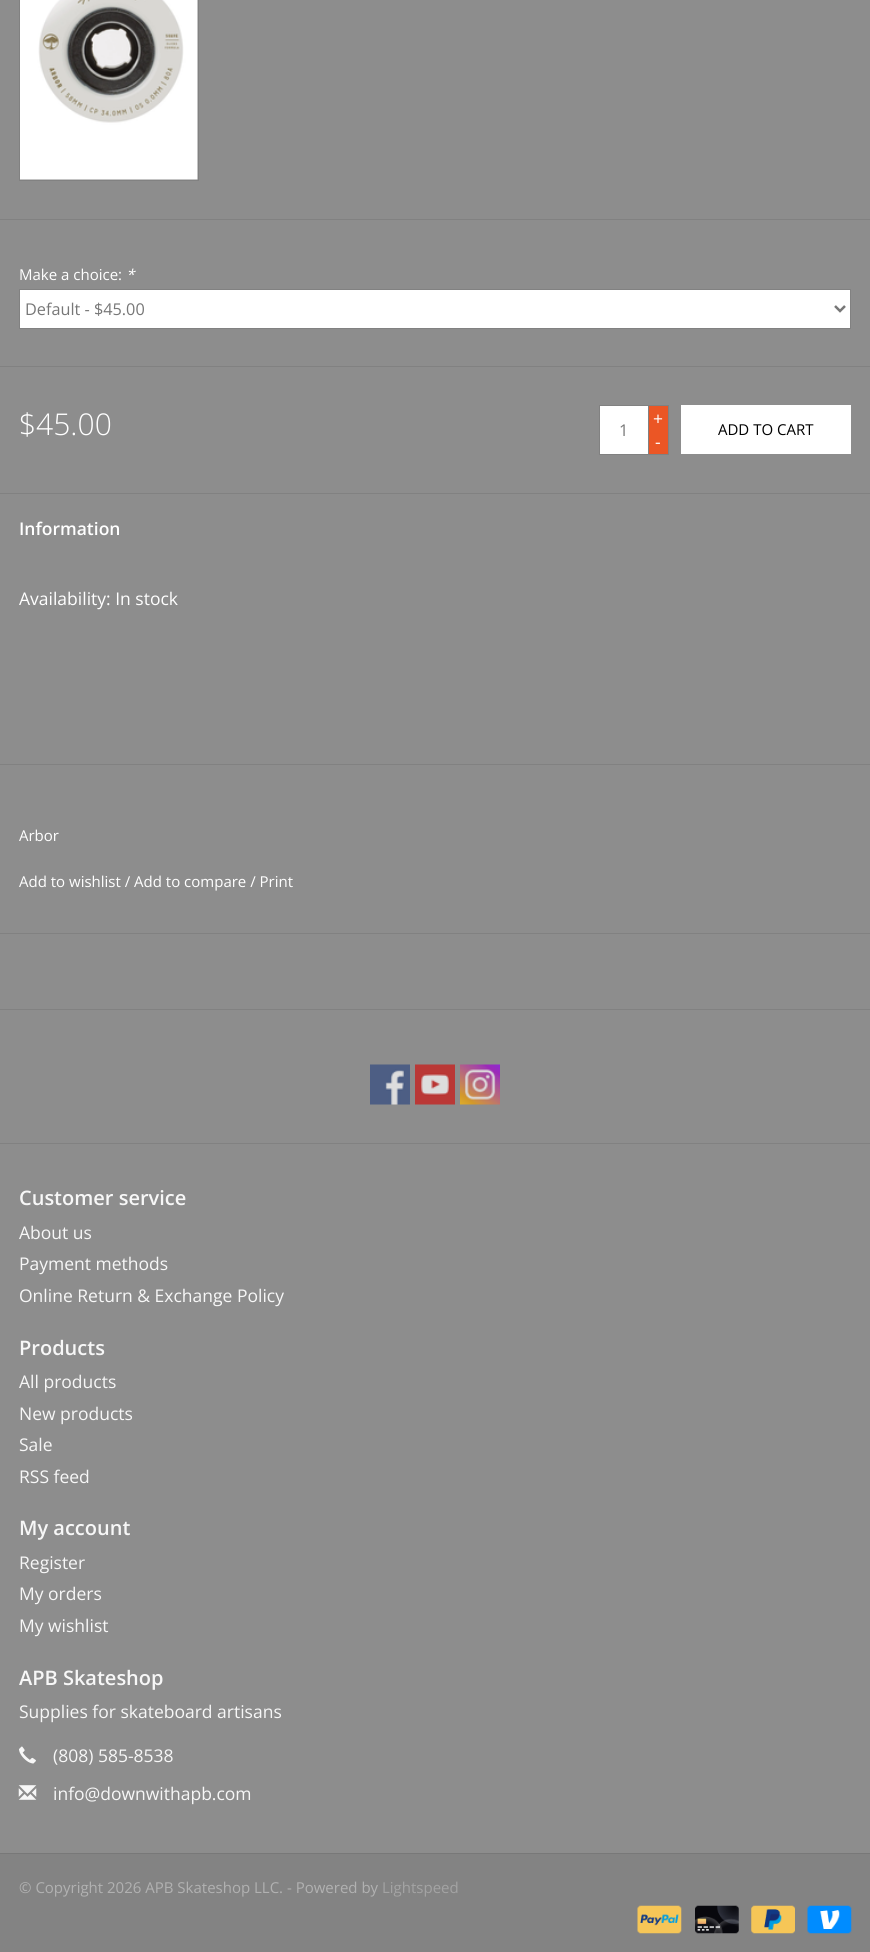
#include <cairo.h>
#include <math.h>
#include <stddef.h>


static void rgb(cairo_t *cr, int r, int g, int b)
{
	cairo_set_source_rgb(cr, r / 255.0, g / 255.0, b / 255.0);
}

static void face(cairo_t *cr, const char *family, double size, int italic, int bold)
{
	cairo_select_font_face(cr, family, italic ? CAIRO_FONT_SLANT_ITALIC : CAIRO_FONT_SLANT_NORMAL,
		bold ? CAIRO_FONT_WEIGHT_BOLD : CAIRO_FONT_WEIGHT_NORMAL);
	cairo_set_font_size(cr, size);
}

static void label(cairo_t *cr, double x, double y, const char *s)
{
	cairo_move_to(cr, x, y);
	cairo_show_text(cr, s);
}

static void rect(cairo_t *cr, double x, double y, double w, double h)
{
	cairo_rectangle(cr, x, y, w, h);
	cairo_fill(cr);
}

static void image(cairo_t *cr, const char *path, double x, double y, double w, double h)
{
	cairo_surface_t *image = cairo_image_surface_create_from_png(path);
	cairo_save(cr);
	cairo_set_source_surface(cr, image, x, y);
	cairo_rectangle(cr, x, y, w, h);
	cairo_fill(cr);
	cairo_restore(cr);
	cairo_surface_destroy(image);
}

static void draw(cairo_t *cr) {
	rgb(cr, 141, 141, 141);
	cairo_paint(cr);
	cairo_rectangle(cr, 19.5, -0.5, 179, 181);
	rgb(cr, 129, 129, 129);
	cairo_set_line_width(cr, 1);
	cairo_stroke(cr);
	rgb(cr, 136, 136, 136);
	rect(cr, 20, 0, 178, 180);
	image(cr, "image0.png", 20, 0, 178, 180);
	rgb(cr, 129, 129, 129);
	rect(cr, 0, 219, 870, 1);
	face(cr, "Open Sans", 15, 0, 0);
	rgb(cr, 255, 255, 255);
	label(cr, 19, 280, "Make a choice:");
	face(cr, "Open Sans", 15, 1, 0);
	label(cr, 126, 280, "*");
	cairo_rectangle(cr, 19.5, 289.5, 831, 39);
	cairo_fill_preserve(cr);
	rgb(cr, 129, 129, 129);
	cairo_stroke(cr);
	cairo_new_path(cr);
	cairo_move_to(cr, 835, 306);
	cairo_line_to(cr, 840, 311);
	cairo_line_to(cr, 845, 306);
	rgb(cr, 119, 119, 119);
	cairo_set_line_width(cr, 2.5);
	cairo_stroke(cr);
	face(cr, "Open Sans", 16.25, 0, 0);
	label(cr, 25, 315, "Default - $45.00");
	rgb(cr, 129, 129, 129);
	rect(cr, 0, 366, 870, 1);
	face(cr, "Open Sans Light", 30, 0, 0);
	rgb(cr, 255, 255, 255);
	label(cr, 19, 435, "$45.00");
	cairo_rectangle(cr, 599.5, 405.5, 49, 49);
	cairo_fill_preserve(cr);
	rgb(cr, 129, 129, 129);
	cairo_set_line_width(cr, 1);
	cairo_stroke(cr);
	face(cr, "Open Sans", 16.25, 0, 0);
	rgb(cr, 119, 119, 119);
	label(cr, 619, 436, "1");
	rgb(cr, 235, 86, 37);
	rect(cr, 649, 406, 19, 48);
	rgb(cr, 129, 129, 129);
	rect(cr, 649, 405, 20, 1);
	rect(cr, 668, 405, 1, 50);
	rect(cr, 649, 454, 20, 1);
	face(cr, "Open Sans", 17.5, 0, 0);
	rgb(cr, 255, 255, 255);
	label(cr, 653, 425, "+");
	label(cr, 655, 448, "-");
	rect(cr, 681, 405, 170, 49);
	face(cr, "Open Sans", 15, 0, 0);
	rgb(cr, 0, 0, 0);
	label(cr, 718, 435, "ADD TO CART");
	rgb(cr, 129, 129, 129);
	rect(cr, 0, 493, 870, 1);
	face(cr, "Open Sans SemiBold", 17.5, 0, 0);
	rgb(cr, 255, 255, 255);
	label(cr, 19, 535, "Information");
	face(cr, "Open Sans", 17.5, 0, 0);
	label(cr, 19, 605, "Availability: In stock");
	rgb(cr, 129, 129, 129);
	rect(cr, 0, 764, 870, 1);
	rect(cr, 0, 933, 870, 1);
	face(cr, "Open Sans", 15, 0, 0);
	rgb(cr, 255, 255, 255);
	label(cr, 19, 841, "Arbor");
	label(cr, 19, 887, "Add to wishlist / Add to compare / Print");
	rgb(cr, 129, 129, 129);
	rect(cr, 0, 1009, 870, 1);
	image(cr, "image1.png", 370, 1064, 40, 41);
	image(cr, "image2.png", 415, 1064, 40, 41);
	image(cr, "image3.png", 460, 1064, 40, 41);
	rect(cr, 0, 1143, 870, 1);
	face(cr, "Open Sans SemiBold", 20, 0, 0);
	rgb(cr, 247, 247, 247);
	label(cr, 19, 1205, "Customer service");
	face(cr, "Open Sans", 17.5, 0, 0);
	label(cr, 19, 1239, "About us");
	label(cr, 19, 1270, "Payment methods");
	label(cr, 19, 1302, "Online Return & Exchange Policy");
	face(cr, "Open Sans SemiBold", 20, 0, 0);
	label(cr, 19, 1355, "Products");
	face(cr, "Open Sans", 17.5, 0, 0);
	label(cr, 19, 1388, "All products");
	label(cr, 19, 1420, "New products");
	label(cr, 19, 1451, "Sale");
	label(cr, 19, 1483, "RSS feed");
	face(cr, "Open Sans SemiBold", 20, 0, 0);
	label(cr, 19, 1535, "My account");
	face(cr, "Open Sans", 17.5, 0, 0);
	label(cr, 19, 1569, "Register");
	label(cr, 19, 1600, "My orders");
	label(cr, 19, 1632, "My wishlist");
	face(cr, "Open Sans SemiBold", 20, 0, 0);
	label(cr, 19, 1685, "APB Skateshop");
	face(cr, "Open Sans", 17.5, 0, 0);
	label(cr, 19, 1718, "Supplies for skateboard artisans");
	image(cr, "image4.png", 19, 1746, 17, 18);
	label(cr, 53, 1762, "(808) 585-8538");
	image(cr, "image5.png", 18, 1785, 19, 15);
	label(cr, 53, 1800, "info@downwithapb.com");
	rgb(cr, 120, 120, 120);
	rect(cr, 0, 1853, 870, 1);
	rgb(cr, 131, 131, 131);
	rect(cr, 0, 1854, 870, 98);
	face(cr, "Open Sans", 15, 0, 0);
	rgb(cr, 177, 177, 177);
	label(cr, 19, 1893, "© Copyright 2026 APB Skateshop LLC. - Powered by");
	rgb(cr, 163, 163, 163);
	label(cr, 382, 1893, "Lightspeed");
	image(cr, "image6.png", 637, 1905, 45, 29);
	image(cr, "image7.png", 695, 1905, 44, 29);
	image(cr, "image8.png", 751, 1905, 44, 29);
	image(cr, "image9.png", 807, 1905, 45, 29);
}

int main(void) {
	cairo_surface_t *surface = cairo_image_surface_create(CAIRO_FORMAT_RGB24, 870, 1952);
	cairo_t *cr = cairo_create(surface);
	cairo_font_options_t *options = cairo_font_options_create();
	cairo_font_options_set_hint_metrics(options, CAIRO_HINT_METRICS_OFF);
	cairo_font_options_set_hint_style(options, CAIRO_HINT_STYLE_NONE);
	cairo_set_font_options(cr, options);
	cairo_set_miter_limit(cr, 4);
	draw(cr);
	cairo_surface_write_to_png(surface, "render.png");
	cairo_font_options_destroy(options);
	cairo_destroy(cr);
	cairo_surface_destroy(surface);
	return 0;
}
